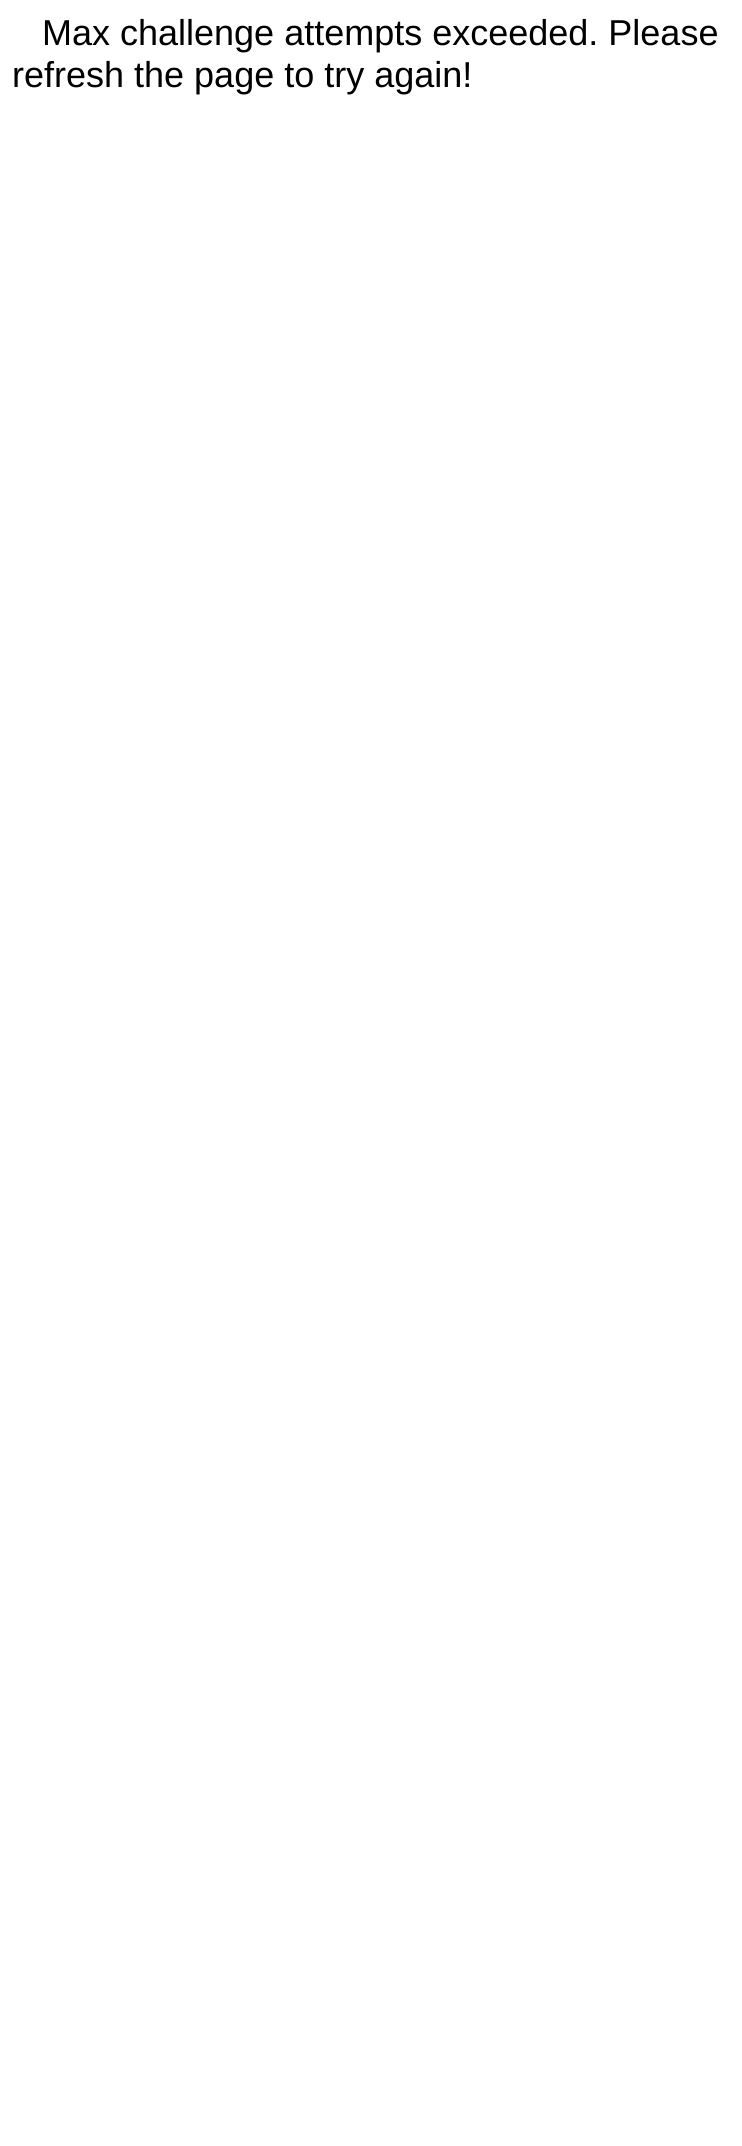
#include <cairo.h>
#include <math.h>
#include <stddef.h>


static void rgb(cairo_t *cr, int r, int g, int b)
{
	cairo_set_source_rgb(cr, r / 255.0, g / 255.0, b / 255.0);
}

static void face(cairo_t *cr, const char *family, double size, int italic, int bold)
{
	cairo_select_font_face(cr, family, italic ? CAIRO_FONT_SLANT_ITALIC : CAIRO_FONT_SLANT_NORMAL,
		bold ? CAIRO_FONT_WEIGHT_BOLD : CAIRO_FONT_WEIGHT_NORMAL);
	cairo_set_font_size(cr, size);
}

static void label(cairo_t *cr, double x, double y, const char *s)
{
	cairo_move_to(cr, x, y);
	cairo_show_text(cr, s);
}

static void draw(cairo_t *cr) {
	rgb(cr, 255, 255, 255);
	cairo_paint(cr);
	face(cr, "Liberation Sans", 36, 0, 0);
	rgb(cr, 0, 0, 0);
	label(cr, 42, 45, "Max challenge attempts exceeded. Please");
	label(cr, 12, 87, "refresh the page to try again!");
}

int main(void) {
	cairo_surface_t *surface = cairo_image_surface_create(CAIRO_FORMAT_RGB24, 742, 2146);
	cairo_t *cr = cairo_create(surface);
	cairo_font_options_t *options = cairo_font_options_create();
	cairo_font_options_set_hint_metrics(options, CAIRO_HINT_METRICS_OFF);
	cairo_font_options_set_hint_style(options, CAIRO_HINT_STYLE_NONE);
	cairo_set_font_options(cr, options);
	cairo_set_miter_limit(cr, 4);
	draw(cr);
	cairo_surface_write_to_png(surface, "render.png");
	cairo_font_options_destroy(options);
	cairo_destroy(cr);
	cairo_surface_destroy(surface);
	return 0;
}
